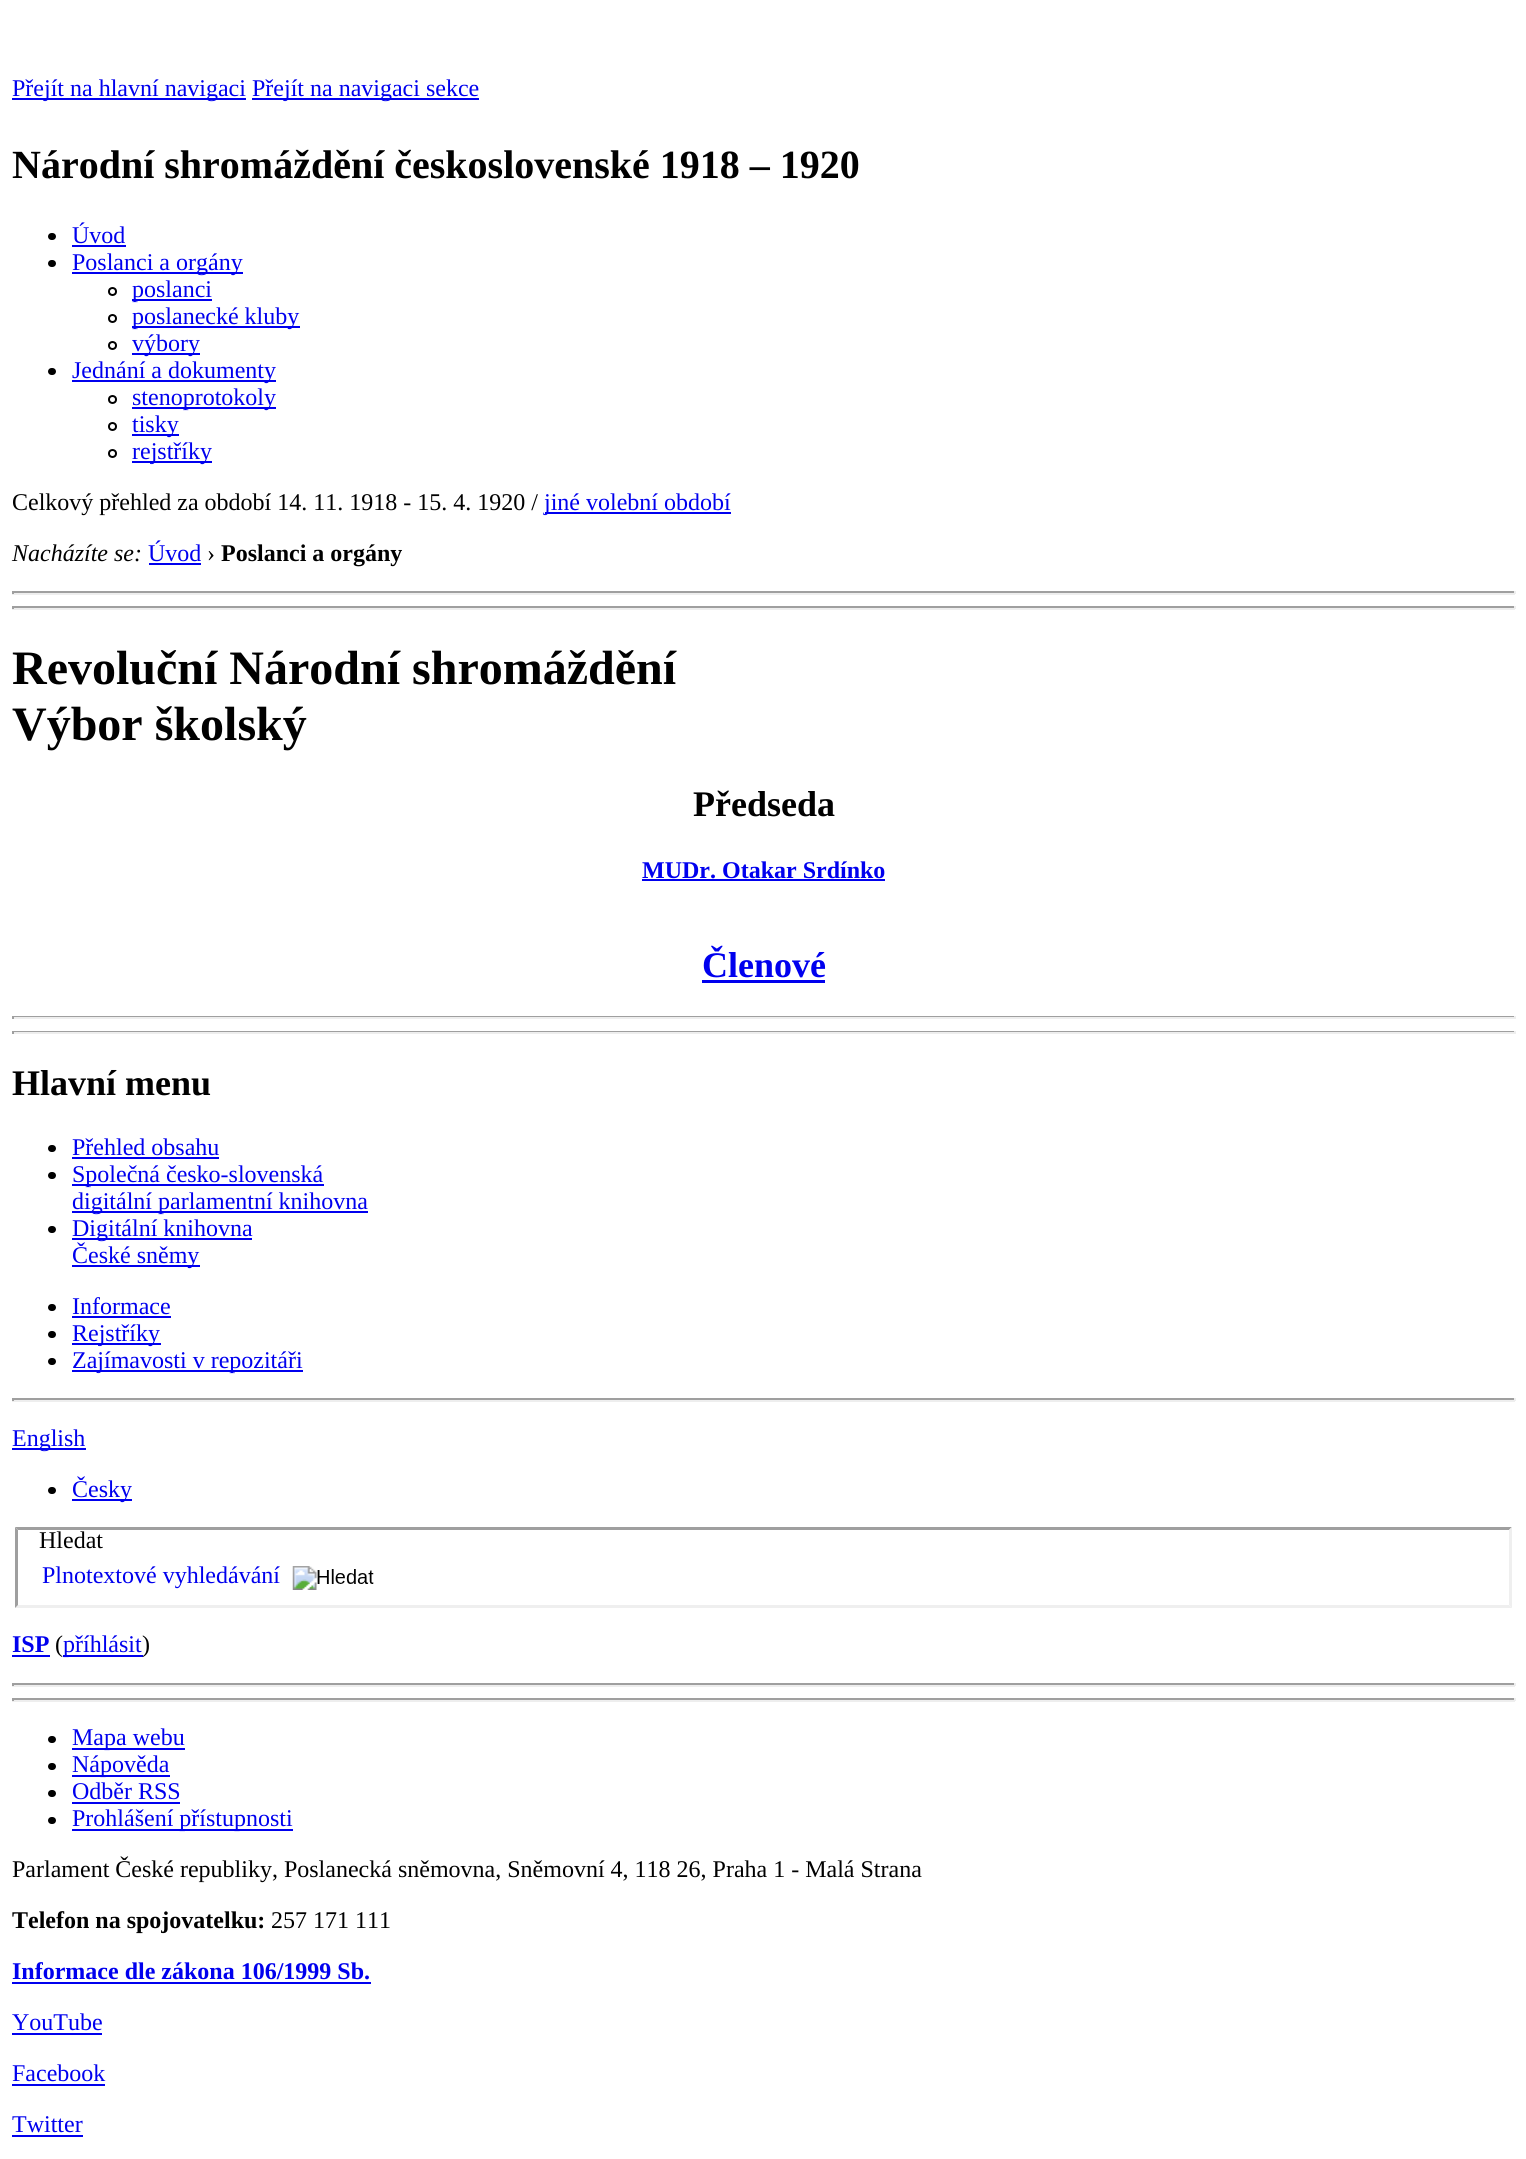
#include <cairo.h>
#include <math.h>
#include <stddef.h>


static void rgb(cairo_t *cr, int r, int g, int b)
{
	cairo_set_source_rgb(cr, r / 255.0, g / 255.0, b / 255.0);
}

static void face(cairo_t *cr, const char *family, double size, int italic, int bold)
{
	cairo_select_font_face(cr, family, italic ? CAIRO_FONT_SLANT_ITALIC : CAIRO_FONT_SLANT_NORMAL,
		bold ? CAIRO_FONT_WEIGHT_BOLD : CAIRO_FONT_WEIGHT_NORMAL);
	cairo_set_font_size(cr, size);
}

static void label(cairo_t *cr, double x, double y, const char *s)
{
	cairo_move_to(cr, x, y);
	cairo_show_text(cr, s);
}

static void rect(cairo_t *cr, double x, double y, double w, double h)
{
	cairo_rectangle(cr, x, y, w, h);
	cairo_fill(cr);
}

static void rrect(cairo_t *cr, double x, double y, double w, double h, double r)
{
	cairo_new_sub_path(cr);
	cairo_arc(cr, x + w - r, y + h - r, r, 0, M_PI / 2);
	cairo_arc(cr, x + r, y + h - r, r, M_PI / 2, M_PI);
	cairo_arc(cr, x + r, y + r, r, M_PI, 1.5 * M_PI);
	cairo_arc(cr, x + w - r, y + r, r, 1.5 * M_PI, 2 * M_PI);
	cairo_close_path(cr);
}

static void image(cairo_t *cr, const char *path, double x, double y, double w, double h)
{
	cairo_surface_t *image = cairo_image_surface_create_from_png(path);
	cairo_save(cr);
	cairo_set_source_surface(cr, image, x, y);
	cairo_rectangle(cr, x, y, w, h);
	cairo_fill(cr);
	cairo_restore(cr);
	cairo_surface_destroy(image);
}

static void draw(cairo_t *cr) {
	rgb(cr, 255, 255, 255);
	cairo_paint(cr);
	rgb(cr, 0, 0, 238);
	rect(cr, 12, 98, 234, 2);
	face(cr, "Liberation Serif", 24, 0, 0);
	label(cr, 12, 96, "Přejít na hlavní navigaci");
	rect(cr, 252, 98, 227, 2);
	label(cr, 252, 96, "Přejít na navigaci sekce");
	face(cr, "Liberation Serif", 40, 0, 1);
	rgb(cr, 0, 0, 0);
	label(cr, 12, 178, "Národní shromáždění československé 1918 – 1920");
	rrect(cr, 48, 233, 8, 7, 3.5);
	cairo_fill(cr);
	face(cr, "Liberation Serif", 24, 0, 0);
	rgb(cr, 0, 0, 238);
	label(cr, 72, 243, "Úvod");
	rect(cr, 72, 245, 54, 2);
	rgb(cr, 0, 0, 0);
	rrect(cr, 48, 260, 8, 7, 3.5);
	cairo_fill(cr);
	rgb(cr, 0, 0, 238);
	rect(cr, 72, 272, 171, 2);
	label(cr, 72, 270, "Poslanci a orgány");
	cairo_new_path(cr);
	cairo_arc(cr, 112.5, 291.5, 3.5, 0, 2 * M_PI);
	rgb(cr, 0, 0, 0);
	cairo_stroke(cr);
	rgb(cr, 0, 0, 238);
	rect(cr, 132, 299, 80, 2);
	label(cr, 132, 297, "poslanci");
	cairo_new_path(cr);
	cairo_arc(cr, 112.5, 318.5, 3.5, 0, 2 * M_PI);
	rgb(cr, 0, 0, 0);
	cairo_stroke(cr);
	rgb(cr, 0, 0, 238);
	rect(cr, 132, 326, 168, 2);
	label(cr, 132, 324, "poslanecké kluby");
	cairo_new_path(cr);
	cairo_arc(cr, 112.5, 345.5, 3.5, 0, 2 * M_PI);
	rgb(cr, 0, 0, 0);
	cairo_stroke(cr);
	rgb(cr, 0, 0, 238);
	rect(cr, 132, 353, 68, 2);
	label(cr, 132, 351, "výbory");
	rgb(cr, 0, 0, 0);
	rrect(cr, 48, 368, 8, 7, 3.5);
	cairo_fill(cr);
	rgb(cr, 0, 0, 238);
	rect(cr, 72, 380, 204, 2);
	label(cr, 72, 378, "Jednání a dokumenty");
	cairo_new_path(cr);
	cairo_arc(cr, 112.5, 399.5, 3.5, 0, 2 * M_PI);
	rgb(cr, 0, 0, 0);
	cairo_stroke(cr);
	rgb(cr, 0, 0, 238);
	rect(cr, 132, 407, 144, 2);
	label(cr, 132, 405, "stenoprotokoly");
	cairo_new_path(cr);
	cairo_arc(cr, 112.5, 426.5, 3.5, 0, 2 * M_PI);
	rgb(cr, 0, 0, 0);
	cairo_stroke(cr);
	rgb(cr, 0, 0, 238);
	rect(cr, 132, 434, 47, 2);
	label(cr, 132, 432, "tisky");
	cairo_new_path(cr);
	cairo_arc(cr, 112.5, 453.5, 3.5, 0, 2 * M_PI);
	rgb(cr, 0, 0, 0);
	cairo_stroke(cr);
	rgb(cr, 0, 0, 238);
	rect(cr, 132, 461, 80, 2);
	label(cr, 132, 459, "rejstříky");
	rgb(cr, 0, 0, 0);
	label(cr, 12, 510, "Celkový přehled za období 14. 11. 1918 - 15. 4. 1920 /");
	rgb(cr, 0, 0, 238);
	rect(cr, 545, 512, 186, 2);
	label(cr, 544, 510, "jiné volební období");
	face(cr, "Liberation Serif", 24, 1, 0);
	rgb(cr, 0, 0, 0);
	label(cr, 12, 561, "Nacházíte se:");
	face(cr, "Liberation Serif", 24, 0, 0);
	rgb(cr, 0, 0, 238);
	label(cr, 148, 561, "Úvod");
	rect(cr, 149, 563, 52, 2);
	rgb(cr, 0, 0, 0);
	label(cr, 207, 561, "›");
	face(cr, "Liberation Serif", 24, 0, 1);
	label(cr, 221, 561, "Poslanci a orgány");
	rgb(cr, 159, 159, 159);
	rect(cr, 12, 591, 1503, 2);
	rgb(cr, 238, 238, 238);
	rect(cr, 1514, 591, 2, 3);
	rect(cr, 12, 593, 1503, 2);
	rgb(cr, 159, 159, 159);
	rect(cr, 12, 591, 2, 3);
	rect(cr, 12, 606, 1503, 2);
	rgb(cr, 238, 238, 238);
	rect(cr, 1514, 606, 2, 3);
	rect(cr, 12, 608, 1503, 2);
	rgb(cr, 159, 159, 159);
	rect(cr, 12, 606, 2, 3);
	face(cr, "Liberation Serif", 48, 0, 1);
	rgb(cr, 0, 0, 0);
	label(cr, 12, 684, "Revoluční Národní shromáždění");
	label(cr, 12, 740, "Výbor školský");
	face(cr, "Liberation Serif", 36, 0, 1);
	label(cr, 693, 816, "Předseda");
	face(cr, "Liberation Serif", 24, 0, 1);
	rgb(cr, 0, 0, 238);
	label(cr, 642, 878, "MUDr. Otakar Srdínko");
	rect(cr, 642, 879, 243, 2);
	face(cr, "Liberation Serif", 36, 0, 1);
	label(cr, 702, 977, "Členové");
	rect(cr, 702, 980, 123, 3);
	rgb(cr, 159, 159, 159);
	rect(cr, 12, 1016, 1503, 1);
	rgb(cr, 238, 238, 238);
	rect(cr, 1514, 1016, 2, 3);
	rect(cr, 12, 1017, 1503, 2);
	rgb(cr, 159, 159, 159);
	rect(cr, 12, 1016, 2, 3);
	rect(cr, 12, 1031, 1503, 1);
	rgb(cr, 238, 238, 238);
	rect(cr, 1514, 1031, 2, 3);
	rect(cr, 12, 1032, 1503, 2);
	rgb(cr, 159, 159, 159);
	rect(cr, 12, 1031, 2, 3);
	rgb(cr, 0, 0, 0);
	label(cr, 12, 1095, "Hlavní menu");
	rrect(cr, 48, 1145, 8, 7, 3.5);
	cairo_fill(cr);
	face(cr, "Liberation Serif", 24, 0, 0);
	rgb(cr, 0, 0, 238);
	label(cr, 72, 1155, "Přehled obsahu");
	rect(cr, 72, 1157, 147, 2);
	rgb(cr, 0, 0, 0);
	rrect(cr, 48, 1172, 8, 7, 3.5);
	cairo_fill(cr);
	rgb(cr, 0, 0, 238);
	rect(cr, 72, 1184, 252, 2);
	label(cr, 72, 1182, "Společná česko-slovenská");
	rect(cr, 72, 1211, 296, 2);
	label(cr, 72, 1209, "digitální parlamentní knihovna");
	rgb(cr, 0, 0, 0);
	rrect(cr, 48, 1226, 8, 7, 3.5);
	cairo_fill(cr);
	rgb(cr, 0, 0, 238);
	rect(cr, 72, 1238, 180, 2);
	label(cr, 72, 1236, "Digitální knihovna");
	rect(cr, 72, 1265, 128, 2);
	label(cr, 72, 1263, "České sněmy");
	rgb(cr, 0, 0, 0);
	rrect(cr, 48, 1304, 8, 7, 3.5);
	cairo_fill(cr);
	rgb(cr, 0, 0, 238);
	label(cr, 72, 1314, "Informace");
	rect(cr, 72, 1316, 99, 2);
	rgb(cr, 0, 0, 0);
	rrect(cr, 48, 1331, 8, 7, 3.5);
	cairo_fill(cr);
	rgb(cr, 0, 0, 238);
	rect(cr, 72, 1343, 89, 2);
	label(cr, 72, 1341, "Rejstříky");
	rgb(cr, 0, 0, 0);
	rrect(cr, 48, 1358, 8, 7, 3.5);
	cairo_fill(cr);
	rgb(cr, 0, 0, 238);
	rect(cr, 72, 1370, 231, 2);
	label(cr, 72, 1368, "Zajímavosti v repozitáři");
	rgb(cr, 159, 159, 159);
	rect(cr, 12, 1398, 1503, 2);
	rgb(cr, 238, 238, 238);
	rect(cr, 1514, 1398, 2, 3);
	rect(cr, 12, 1400, 1503, 2);
	rgb(cr, 159, 159, 159);
	rect(cr, 12, 1398, 2, 3);
	rgb(cr, 0, 0, 238);
	rect(cr, 12, 1448, 74, 2);
	label(cr, 12, 1446, "English");
	rgb(cr, 0, 0, 0);
	rrect(cr, 48, 1487, 8, 7, 3.5);
	cairo_fill(cr);
	rgb(cr, 0, 0, 238);
	rect(cr, 72, 1499, 60, 2);
	label(cr, 72, 1497, "Česky");
	rgb(cr, 159, 159, 159);
	cairo_new_path(cr);
	cairo_move_to(cr, 15, 1527);
	cairo_line_to(cr, 1512, 1527);
	cairo_line_to(cr, 1509, 1530);
	cairo_line_to(cr, 18, 1530);
	cairo_close_path(cr);
	cairo_fill(cr);
	rgb(cr, 239, 239, 239);
	cairo_new_path(cr);
	cairo_move_to(cr, 1512, 1527);
	cairo_line_to(cr, 1512, 1608);
	cairo_line_to(cr, 1509, 1605);
	cairo_line_to(cr, 1509, 1530);
	cairo_close_path(cr);
	cairo_fill(cr);
	cairo_new_path(cr);
	cairo_move_to(cr, 1512, 1608);
	cairo_line_to(cr, 15, 1608);
	cairo_line_to(cr, 18, 1605);
	cairo_line_to(cr, 1509, 1605);
	cairo_close_path(cr);
	cairo_fill(cr);
	rgb(cr, 159, 159, 159);
	cairo_new_path(cr);
	cairo_move_to(cr, 15, 1608);
	cairo_line_to(cr, 15, 1527);
	cairo_line_to(cr, 18, 1530);
	cairo_line_to(cr, 18, 1605);
	cairo_close_path(cr);
	cairo_fill(cr);
	rgb(cr, 0, 0, 0);
	label(cr, 39, 1548, "Hledat");
	rgb(cr, 0, 0, 238);
	label(cr, 42, 1583, "Plnotextové vyhledávání");
	image(cr, "image0.png", 292, 1566, 82, 24);
	face(cr, "Liberation Serif", 24, 0, 1);
	label(cr, 12, 1652, "ISP");
	rect(cr, 12, 1655, 38, 2);
	face(cr, "Liberation Serif", 24, 0, 0);
	rgb(cr, 0, 0, 0);
	label(cr, 55, 1652, "(");
	rgb(cr, 0, 0, 238);
	rect(cr, 63, 1655, 80, 2);
	label(cr, 63, 1652, "příhlásit");
	rgb(cr, 0, 0, 0);
	label(cr, 142, 1652, ")");
	rgb(cr, 159, 159, 159);
	rect(cr, 12, 1683, 1503, 2);
	rgb(cr, 238, 238, 238);
	rect(cr, 1514, 1683, 2, 3);
	rect(cr, 12, 1685, 1503, 2);
	rgb(cr, 159, 159, 159);
	rect(cr, 12, 1683, 2, 3);
	rect(cr, 12, 1698, 1503, 2);
	rgb(cr, 238, 238, 238);
	rect(cr, 1514, 1698, 2, 3);
	rect(cr, 12, 1700, 1503, 2);
	rgb(cr, 159, 159, 159);
	rect(cr, 12, 1698, 2, 3);
	rgb(cr, 0, 0, 0);
	rrect(cr, 48, 1736, 8, 7, 3.5);
	cairo_fill(cr);
	rgb(cr, 0, 0, 238);
	rect(cr, 72, 1748, 113, 2);
	label(cr, 72, 1745, "Mapa webu");
	rgb(cr, 0, 0, 0);
	rrect(cr, 48, 1763, 8, 7, 3.5);
	cairo_fill(cr);
	rgb(cr, 0, 0, 238);
	rect(cr, 72, 1775, 98, 2);
	label(cr, 72, 1772, "Nápověda");
	rgb(cr, 0, 0, 0);
	rrect(cr, 48, 1790, 8, 7, 3.5);
	cairo_fill(cr);
	rgb(cr, 0, 0, 238);
	label(cr, 72, 1799, "Odběr RSS");
	rect(cr, 72, 1802, 108, 2);
	rgb(cr, 0, 0, 0);
	rrect(cr, 48, 1817, 8, 7, 3.5);
	cairo_fill(cr);
	rgb(cr, 0, 0, 238);
	rect(cr, 72, 1829, 221, 2);
	label(cr, 72, 1826, "Prohlášení přístupnosti");
	rgb(cr, 0, 0, 0);
	label(cr, 12, 1877, "Parlament České republiky, Poslanecká sněmovna, Sněmovní 4, 118 26, Praha 1 - Malá Strana");
	face(cr, "Liberation Serif", 24, 0, 1);
	label(cr, 12, 1928, "Telefon na spojovatelku:");
	face(cr, "Liberation Serif", 24, 0, 0);
	label(cr, 271, 1928, "257 171 111");
	face(cr, "Liberation Serif", 24, 0, 1);
	rgb(cr, 0, 0, 238);
	label(cr, 12, 1979, "Informace dle zákona 106/1999 Sb.");
	rect(cr, 12, 1982, 359, 2);
	face(cr, "Liberation Serif", 24, 0, 0);
	label(cr, 12, 2030, "YouTube");
	rect(cr, 12, 2033, 90, 2);
	label(cr, 12, 2081, "Facebook");
	rect(cr, 12, 2084, 93, 2);
	label(cr, 12, 2132, "Twitter");
	rect(cr, 12, 2135, 71, 2);
}

int main(void) {
	cairo_surface_t *surface = cairo_image_surface_create(CAIRO_FORMAT_RGB24, 1526, 2159);
	cairo_t *cr = cairo_create(surface);
	cairo_font_options_t *options = cairo_font_options_create();
	cairo_font_options_set_hint_metrics(options, CAIRO_HINT_METRICS_OFF);
	cairo_font_options_set_hint_style(options, CAIRO_HINT_STYLE_NONE);
	cairo_set_font_options(cr, options);
	cairo_set_miter_limit(cr, 4);
	draw(cr);
	cairo_surface_write_to_png(surface, "render.png");
	cairo_font_options_destroy(options);
	cairo_destroy(cr);
	cairo_surface_destroy(surface);
	return 0;
}
